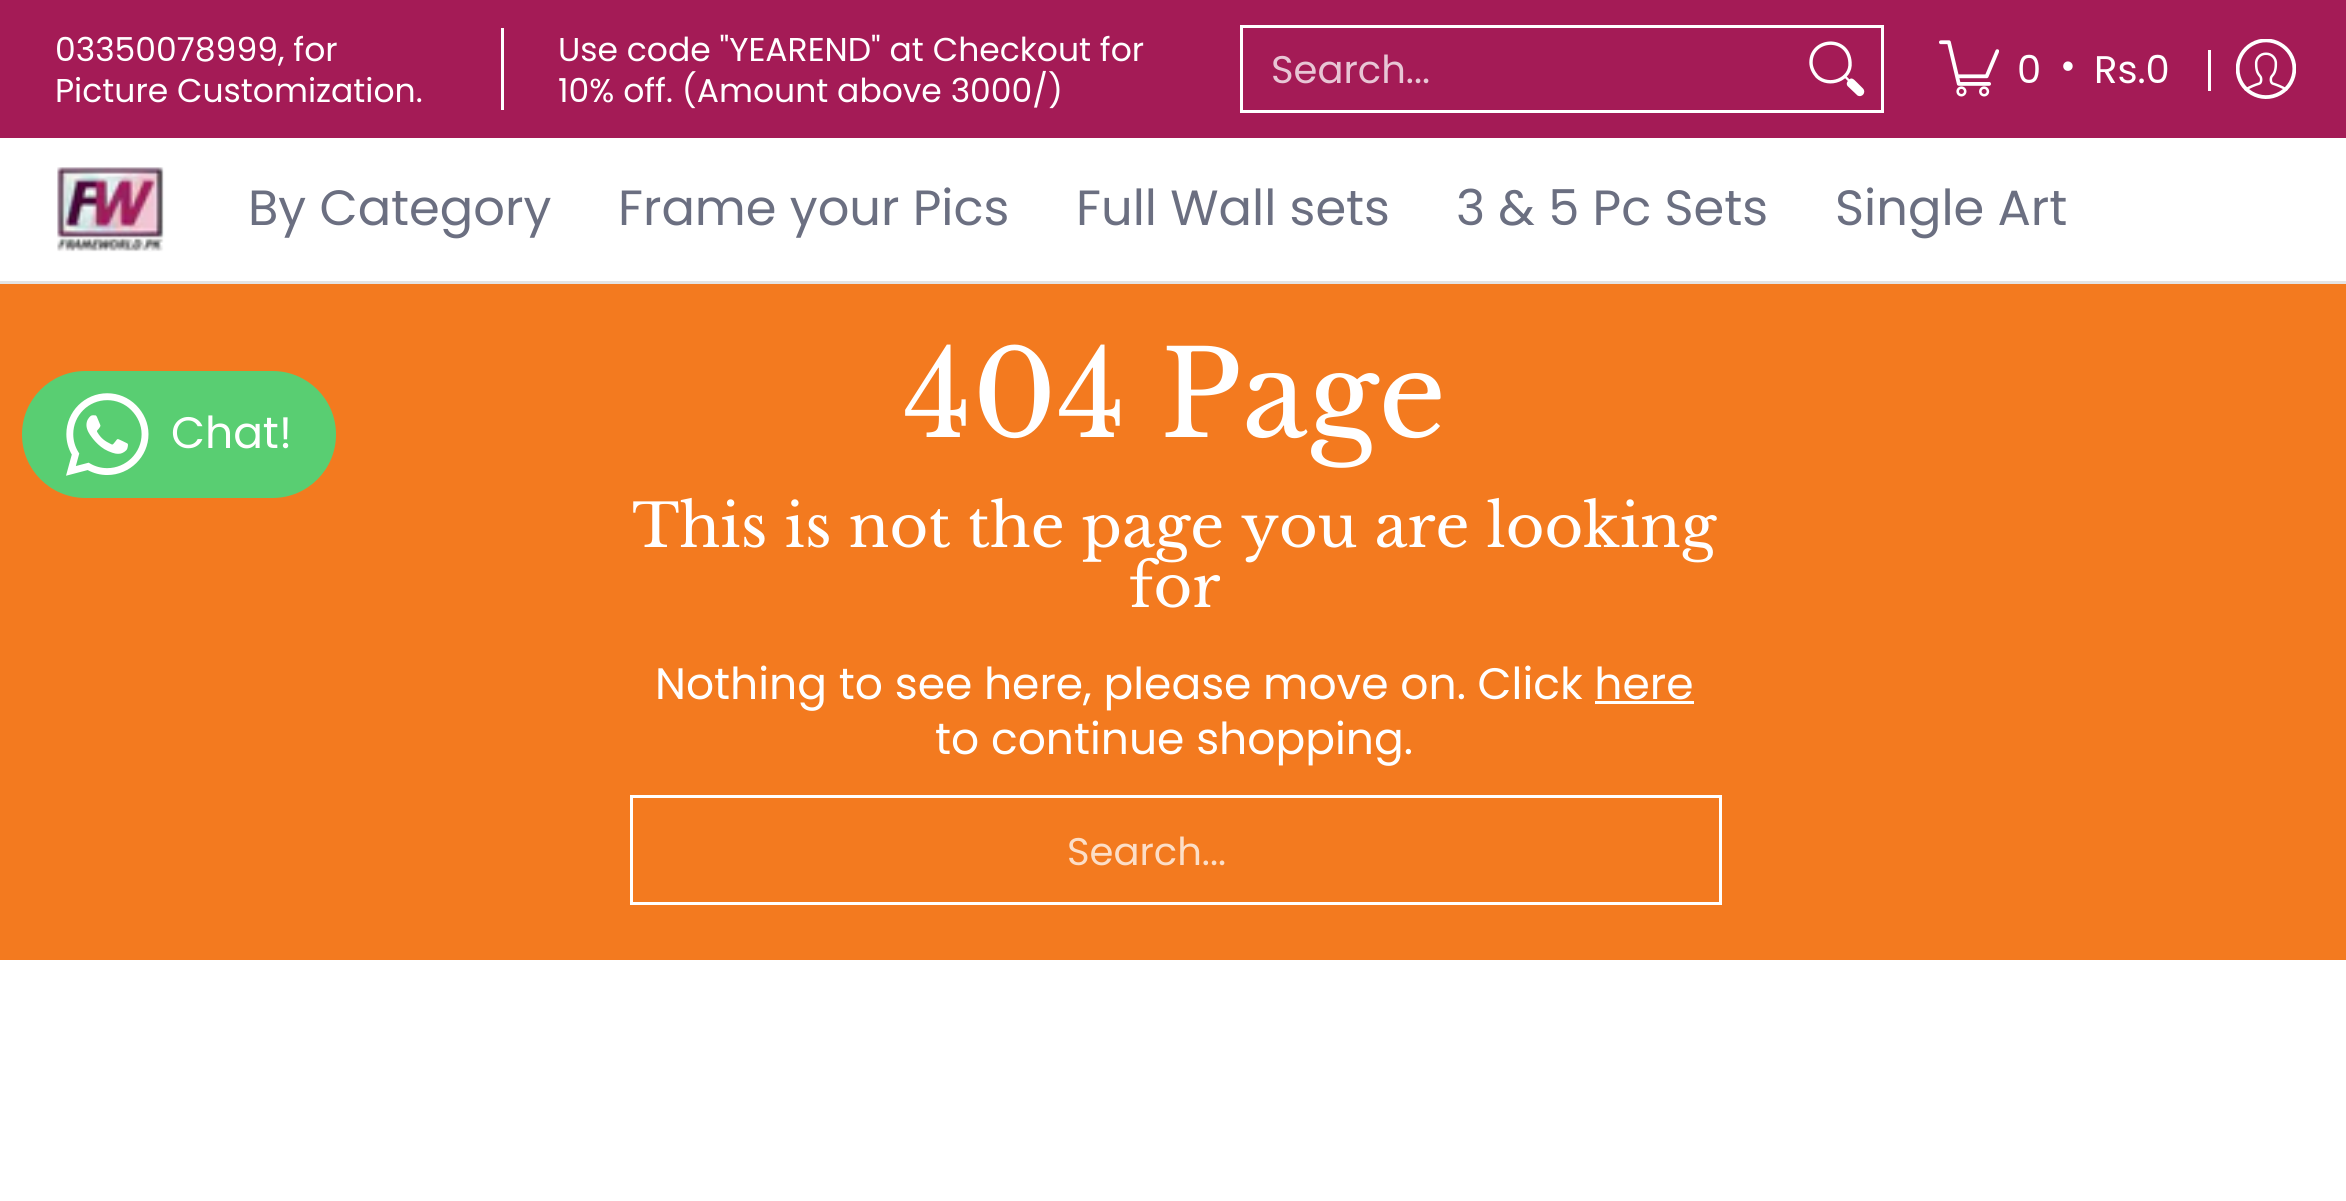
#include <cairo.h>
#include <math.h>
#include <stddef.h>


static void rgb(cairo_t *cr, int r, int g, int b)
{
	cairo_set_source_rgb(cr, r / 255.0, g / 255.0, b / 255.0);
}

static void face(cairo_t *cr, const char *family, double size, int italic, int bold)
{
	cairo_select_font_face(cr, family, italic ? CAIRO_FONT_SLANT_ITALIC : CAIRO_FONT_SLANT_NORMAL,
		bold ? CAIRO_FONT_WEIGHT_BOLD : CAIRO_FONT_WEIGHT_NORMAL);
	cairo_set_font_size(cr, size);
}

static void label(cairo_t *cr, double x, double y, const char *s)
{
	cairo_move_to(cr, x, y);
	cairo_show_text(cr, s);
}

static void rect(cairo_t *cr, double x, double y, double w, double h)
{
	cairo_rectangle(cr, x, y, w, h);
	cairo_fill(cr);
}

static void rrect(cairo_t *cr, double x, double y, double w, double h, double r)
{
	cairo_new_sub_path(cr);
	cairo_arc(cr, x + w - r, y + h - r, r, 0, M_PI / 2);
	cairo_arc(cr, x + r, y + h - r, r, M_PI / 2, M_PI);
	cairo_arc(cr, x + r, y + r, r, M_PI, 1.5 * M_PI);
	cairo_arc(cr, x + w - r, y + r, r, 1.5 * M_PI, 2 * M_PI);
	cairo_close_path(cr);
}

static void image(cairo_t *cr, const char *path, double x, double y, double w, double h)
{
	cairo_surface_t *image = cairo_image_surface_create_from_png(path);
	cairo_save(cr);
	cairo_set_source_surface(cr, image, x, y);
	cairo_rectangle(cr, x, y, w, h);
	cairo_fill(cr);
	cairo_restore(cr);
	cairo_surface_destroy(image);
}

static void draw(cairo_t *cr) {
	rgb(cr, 255, 255, 255);
	cairo_paint(cr);
	rgb(cr, 164, 27, 86);
	rect(cr, 0, 0, 2346, 138);
	face(cr, "Poppins", 33, 0, 0);
	rgb(cr, 255, 255, 255);
	label(cr, 55, 61, "03350078999, for");
	label(cr, 55, 102, "Picture Customization.");
	rect(cr, 501, 28, 3, 82);
	label(cr, 558, 61, "Use code \"YEAREND\" at Checkout for");
	label(cr, 558, 102, "10% off. (Amount above 3000/)");
	cairo_rectangle(cr, 1241.5, 26.5, 641, 85);
	cairo_set_line_width(cr, 3);
	cairo_stroke(cr);
	face(cr, "Poppins", 38.5, 0, 0);
	rgb(cr, 232, 198, 213);
	label(cr, 1271, 83, "Search...");
	cairo_new_path(cr);
	cairo_move_to(cr, 1811, 62.5);
	cairo_curve_to(cr, 1811, 67.5, 1813.5, 72.5, 1817, 76.5);
	cairo_curve_to(cr, 1829, 88, 1851.5, 79.5, 1850, 62.5);
	cairo_curve_to(cr, 1848.5, 35.5, 1811, 38, 1811, 62.5);
	cairo_close_path(cr);
	rgb(cr, 255, 255, 255);
	cairo_set_line_width(cr, 3.4);
	cairo_set_line_cap(cr, CAIRO_LINE_CAP_ROUND);
	cairo_set_line_join(cr, CAIRO_LINE_JOIN_ROUND);
	cairo_stroke(cr);
	cairo_new_path(cr);
	cairo_move_to(cr, 1844, 75.5);
	cairo_line_to(cr, 1849.5, 81);
	cairo_set_line_width(cr, 2.3);
	cairo_set_line_cap(cr, CAIRO_LINE_CAP_BUTT);
	cairo_stroke(cr);
	cairo_new_path(cr);
	cairo_move_to(cr, 1863, 88.5);
	cairo_curve_to(cr, 1866.5, 92.5, 1862, 98, 1857.5, 95.5);
	cairo_line_to(cr, 1847.5, 86);
	cairo_curve_to(cr, 1846.5, 84.5, 1846.5, 83, 1847.5, 81.5);
	cairo_curve_to(cr, 1851, 76, 1853.5, 79, 1857, 82.5);
	cairo_close_path(cr);
	cairo_fill(cr);
	image(cr, "image0.png", 1939, 40, 60, 57);
	label(cr, 2017, 83, "0");
	label(cr, 2060, 79, "•");
	label(cr, 2094, 83, "Rs.0");
	rect(cr, 2208, 50, 3, 41);
	image(cr, "image1.png", 2236, 39, 60, 60);
	rgb(cr, 228, 228, 228);
	rect(cr, 0, 281, 2346, 3);
	image(cr, "image2.png", 57, 167, 108, 85);
	face(cr, "Poppins", 49.5, 0, 0);
	rgb(cr, 107, 111, 129);
	label(cr, 248, 225, "By Category");
	label(cr, 618, 225, "Frame your Pics");
	label(cr, 1076, 225, "Full Wall sets");
	label(cr, 1456, 225, "3 & 5 Pc Sets");
	label(cr, 1835, 225, "Single Art");
	rgb(cr, 243, 122, 31);
	rect(cr, 0, 284, 2346, 676);
	rgb(cr, 89, 206, 114);
	rrect(cr, 22, 371, 314, 127, 63.5);
	cairo_fill(cr);
	image(cr, "image3.png", 66, 393, 83, 83);
	face(cr, "Poppins", 44, 0, 0);
	rgb(cr, 255, 255, 255);
	label(cr, 171, 448, "Chat!");
	face(cr, "Libre Baskerville", 118.5, 0, 0);
	label(cr, 903, 437, "404 Page");
	face(cr, "Libre Baskerville", 59.25, 0, 0);
	label(cr, 632, 547, "This is not the page you are looking");
	label(cr, 1129, 607, "for");
	face(cr, "Poppins", 44, 0, 0);
	label(cr, 655, 699, "Nothing to see here, please move on. Click here");
	rect(cr, 1595, 701, 99, 3);
	label(cr, 935, 754, "to continue shopping.");
	cairo_rectangle(cr, 631.5, 796.5, 1089, 107);
	cairo_set_line_width(cr, 3);
	cairo_set_line_join(cr, CAIRO_LINE_JOIN_MITER);
	cairo_stroke(cr);
	face(cr, "Poppins", 38.5, 0, 0);
	rgb(cr, 252, 222, 199);
	label(cr, 1067, 865, "Search...");
}

int main(void) {
	cairo_surface_t *surface = cairo_image_surface_create(CAIRO_FORMAT_RGB24, 2346, 1201);
	cairo_t *cr = cairo_create(surface);
	cairo_font_options_t *options = cairo_font_options_create();
	cairo_font_options_set_hint_metrics(options, CAIRO_HINT_METRICS_OFF);
	cairo_font_options_set_hint_style(options, CAIRO_HINT_STYLE_NONE);
	cairo_set_font_options(cr, options);
	cairo_set_miter_limit(cr, 4);
	draw(cr);
	cairo_surface_write_to_png(surface, "render.png");
	cairo_font_options_destroy(options);
	cairo_destroy(cr);
	cairo_surface_destroy(surface);
	return 0;
}
